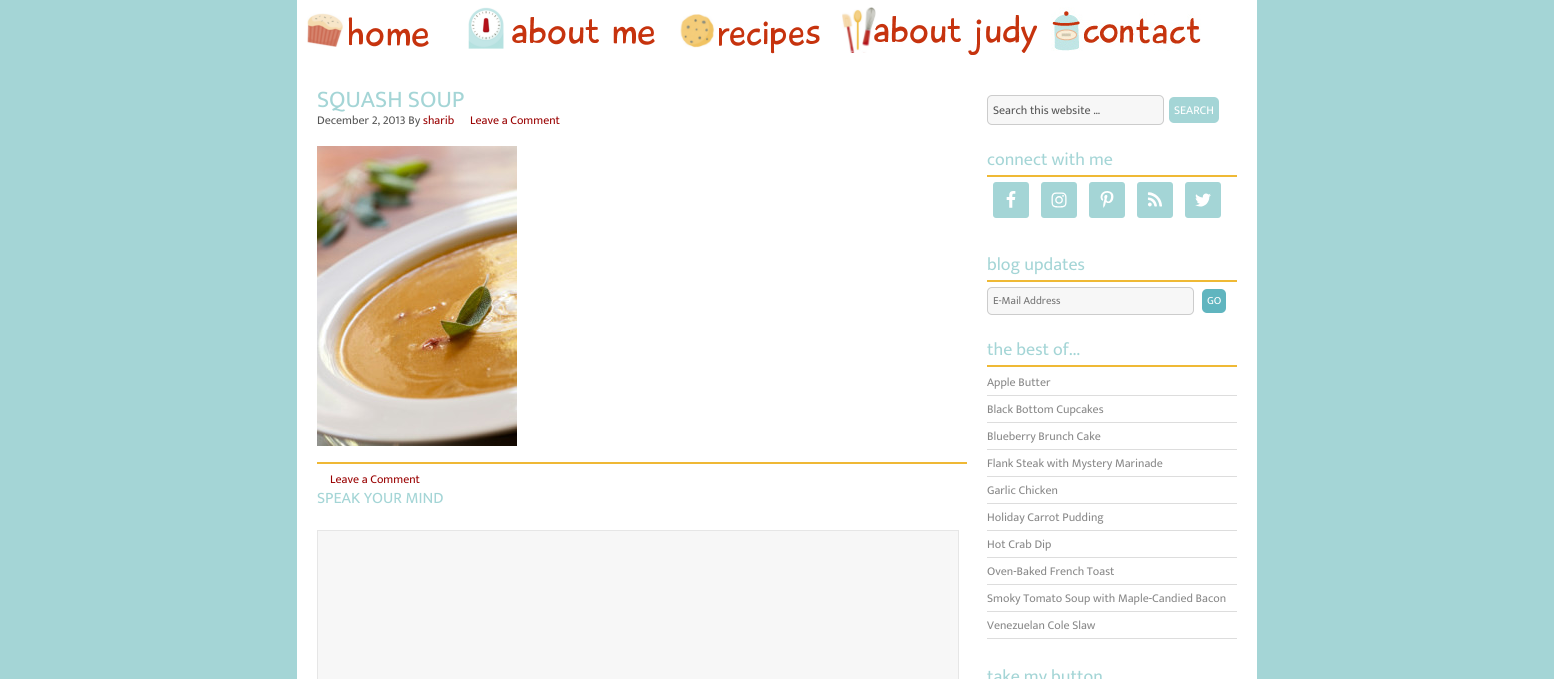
#include <cairo.h>
#include <math.h>
#include <stddef.h>


static void rgb(cairo_t *cr, int r, int g, int b)
{
	cairo_set_source_rgb(cr, r / 255.0, g / 255.0, b / 255.0);
}

static void face(cairo_t *cr, const char *family, double size, int italic, int bold)
{
	cairo_select_font_face(cr, family, italic ? CAIRO_FONT_SLANT_ITALIC : CAIRO_FONT_SLANT_NORMAL,
		bold ? CAIRO_FONT_WEIGHT_BOLD : CAIRO_FONT_WEIGHT_NORMAL);
	cairo_set_font_size(cr, size);
}

static void label(cairo_t *cr, double x, double y, const char *s)
{
	cairo_move_to(cr, x, y);
	cairo_show_text(cr, s);
}

static void rect(cairo_t *cr, double x, double y, double w, double h)
{
	cairo_rectangle(cr, x, y, w, h);
	cairo_fill(cr);
}

static void rrect(cairo_t *cr, double x, double y, double w, double h, double r)
{
	cairo_new_sub_path(cr);
	cairo_arc(cr, x + w - r, y + h - r, r, 0, M_PI / 2);
	cairo_arc(cr, x + r, y + h - r, r, M_PI / 2, M_PI);
	cairo_arc(cr, x + r, y + r, r, M_PI, 1.5 * M_PI);
	cairo_arc(cr, x + w - r, y + r, r, 1.5 * M_PI, 2 * M_PI);
	cairo_close_path(cr);
}

static void image(cairo_t *cr, const char *path, double x, double y, double w, double h)
{
	cairo_surface_t *image = cairo_image_surface_create_from_png(path);
	cairo_save(cr);
	cairo_set_source_surface(cr, image, x, y);
	cairo_rectangle(cr, x, y, w, h);
	cairo_fill(cr);
	cairo_restore(cr);
	cairo_surface_destroy(image);
}

static void draw(cairo_t *cr) {
	rgb(cr, 164, 213, 214);
	cairo_paint(cr);
	rgb(cr, 255, 255, 255);
	rect(cr, 297, 0, 960, 679);
	image(cr, "image0.png", 307, 13, 122, 34);
	image(cr, "image1.png", 468, 7, 187, 42);
	image(cr, "image2.png", 680, 14, 140, 40);
	image(cr, "image3.png", 842, 7, 195, 48);
	image(cr, "image4.png", 1051, 7, 150, 44);
	face(cr, "Ek Mukta", 24, 0, 0);
	rgb(cr, 164, 213, 214);
	label(cr, 317, 107, "SQUASH SOUP");
	face(cr, "Ek Mukta", 12, 0, 0);
	rgb(cr, 85, 85, 85);
	label(cr, 317, 124, "December 2, 2013 By");
	rgb(cr, 153, 0, 0);
	label(cr, 423, 124, "sharib");
	label(cr, 470, 124, "Leave a Comment");
	image(cr, "image5.png", 317, 146, 200, 300);
	rgb(cr, 239, 184, 53);
	rect(cr, 317, 462, 650, 2);
	rgb(cr, 153, 0, 0);
	label(cr, 330, 483, "Leave a Comment");
	face(cr, "Ek Mukta", 16, 0, 0);
	rgb(cr, 164, 213, 214);
	label(cr, 317, 503, "SPEAK YOUR MIND");
	rgb(cr, 247, 247, 247);
	cairo_rectangle(cr, 317.5, 530.5, 641, 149);
	cairo_fill_preserve(cr);
	rgb(cr, 230, 230, 230);
	cairo_set_line_width(cr, 1);
	cairo_stroke(cr);
	rgb(cr, 247, 247, 247);
	rrect(cr, 987.5, 95.5, 176, 29, 4.5);
	cairo_fill_preserve(cr);
	rgb(cr, 204, 204, 204);
	cairo_stroke(cr);
	face(cr, "Ek Mukta", 12, 0, 0);
	rgb(cr, 85, 85, 85);
	label(cr, 993, 114, "Search this website …");
	rgb(cr, 164, 213, 214);
	rrect(cr, 1169, 97, 50, 26, 5);
	cairo_fill(cr);
	rgb(cr, 255, 255, 255);
	label(cr, 1174, 114, "SEARCH");
	rgb(cr, 239, 185, 53);
	rect(cr, 987, 175, 250, 2);
	face(cr, "Ek Mukta", 18, 0, 0);
	rgb(cr, 164, 213, 214);
	label(cr, 987, 165, "connect with me");
	rrect(cr, 993, 182, 36, 36, 3);
	cairo_fill(cr);
	image(cr, "image6.png", 1006, 191, 10, 17);
	rrect(cr, 1041, 182, 36, 36, 3);
	cairo_fill(cr);
	image(cr, "image7.png", 1051, 192, 16, 16);
	rrect(cr, 1089, 182, 36, 36, 3);
	cairo_fill(cr);
	image(cr, "image8.png", 1100, 191, 14, 17);
	rrect(cr, 1137, 182, 36, 36, 3);
	cairo_fill(cr);
	image(cr, "image9.png", 1147, 192, 15, 15);
	rrect(cr, 1185, 182, 36, 36, 3);
	cairo_fill(cr);
	image(cr, "image10.png", 1195, 193, 16, 14);
	rgb(cr, 239, 185, 53);
	rect(cr, 987, 280, 250, 2);
	rgb(cr, 164, 213, 214);
	label(cr, 987, 270, "blog updates");
	rgb(cr, 247, 247, 247);
	rrect(cr, 987.5, 287.5, 206, 27, 4.5);
	cairo_fill_preserve(cr);
	rgb(cr, 204, 204, 204);
	cairo_stroke(cr);
	face(cr, "Ek Mukta", 11, 0, 0);
	rgb(cr, 117, 117, 117);
	label(cr, 993, 304, "E-Mail Address");
	rgb(cr, 96, 181, 191);
	rrect(cr, 1202, 289, 24, 24, 5);
	cairo_fill(cr);
	rgb(cr, 255, 255, 255);
	label(cr, 1207, 304, "GO");
	rgb(cr, 239, 185, 53);
	rect(cr, 987, 365, 250, 2);
	face(cr, "Ek Mukta", 18, 0, 0);
	rgb(cr, 164, 213, 214);
	label(cr, 987, 355, "the best of...");
	rgb(cr, 221, 221, 221);
	rect(cr, 987, 395, 250, 1);
	face(cr, "Ek Mukta", 12, 0, 0);
	rgb(cr, 136, 136, 136);
	label(cr, 987, 386, "Apple Butter");
	rgb(cr, 221, 221, 221);
	rect(cr, 987, 422, 250, 1);
	rgb(cr, 136, 136, 136);
	label(cr, 987, 413, "Black Bottom Cupcakes");
	rgb(cr, 221, 221, 221);
	rect(cr, 987, 449, 250, 1);
	rgb(cr, 136, 136, 136);
	label(cr, 987, 440, "Blueberry Brunch Cake");
	rgb(cr, 221, 221, 221);
	rect(cr, 987, 476, 250, 1);
	rgb(cr, 136, 136, 136);
	label(cr, 987, 467, "Flank Steak with Mystery Marinade");
	rgb(cr, 221, 221, 221);
	rect(cr, 987, 503, 250, 1);
	rgb(cr, 136, 136, 136);
	label(cr, 987, 494, "Garlic Chicken");
	rgb(cr, 221, 221, 221);
	rect(cr, 987, 530, 250, 1);
	rgb(cr, 136, 136, 136);
	label(cr, 987, 521, "Holiday Carrot Pudding");
	rgb(cr, 221, 221, 221);
	rect(cr, 987, 557, 250, 1);
	rgb(cr, 136, 136, 136);
	label(cr, 987, 548, "Hot Crab Dip");
	rgb(cr, 221, 221, 221);
	rect(cr, 987, 584, 250, 1);
	rgb(cr, 136, 136, 136);
	label(cr, 987, 575, "Oven-Baked French Toast");
	rgb(cr, 221, 221, 221);
	rect(cr, 987, 611, 250, 1);
	rgb(cr, 136, 136, 136);
	label(cr, 987, 602, "Smoky Tomato Soup with Maple-Candied Bacon");
	rgb(cr, 221, 221, 221);
	rect(cr, 987, 638, 250, 1);
	rgb(cr, 136, 136, 136);
	label(cr, 987, 629, "Venezuelan Cole Slaw");
	face(cr, "Ek Mukta", 18, 0, 0);
	rgb(cr, 164, 213, 214);
	label(cr, 987, 682, "take my button");
}

int main(void) {
	cairo_surface_t *surface = cairo_image_surface_create(CAIRO_FORMAT_RGB24, 1554, 679);
	cairo_t *cr = cairo_create(surface);
	cairo_font_options_t *options = cairo_font_options_create();
	cairo_font_options_set_hint_metrics(options, CAIRO_HINT_METRICS_OFF);
	cairo_font_options_set_hint_style(options, CAIRO_HINT_STYLE_NONE);
	cairo_set_font_options(cr, options);
	cairo_set_miter_limit(cr, 4);
	draw(cr);
	cairo_surface_write_to_png(surface, "render.png");
	cairo_font_options_destroy(options);
	cairo_destroy(cr);
	cairo_surface_destroy(surface);
	return 0;
}
